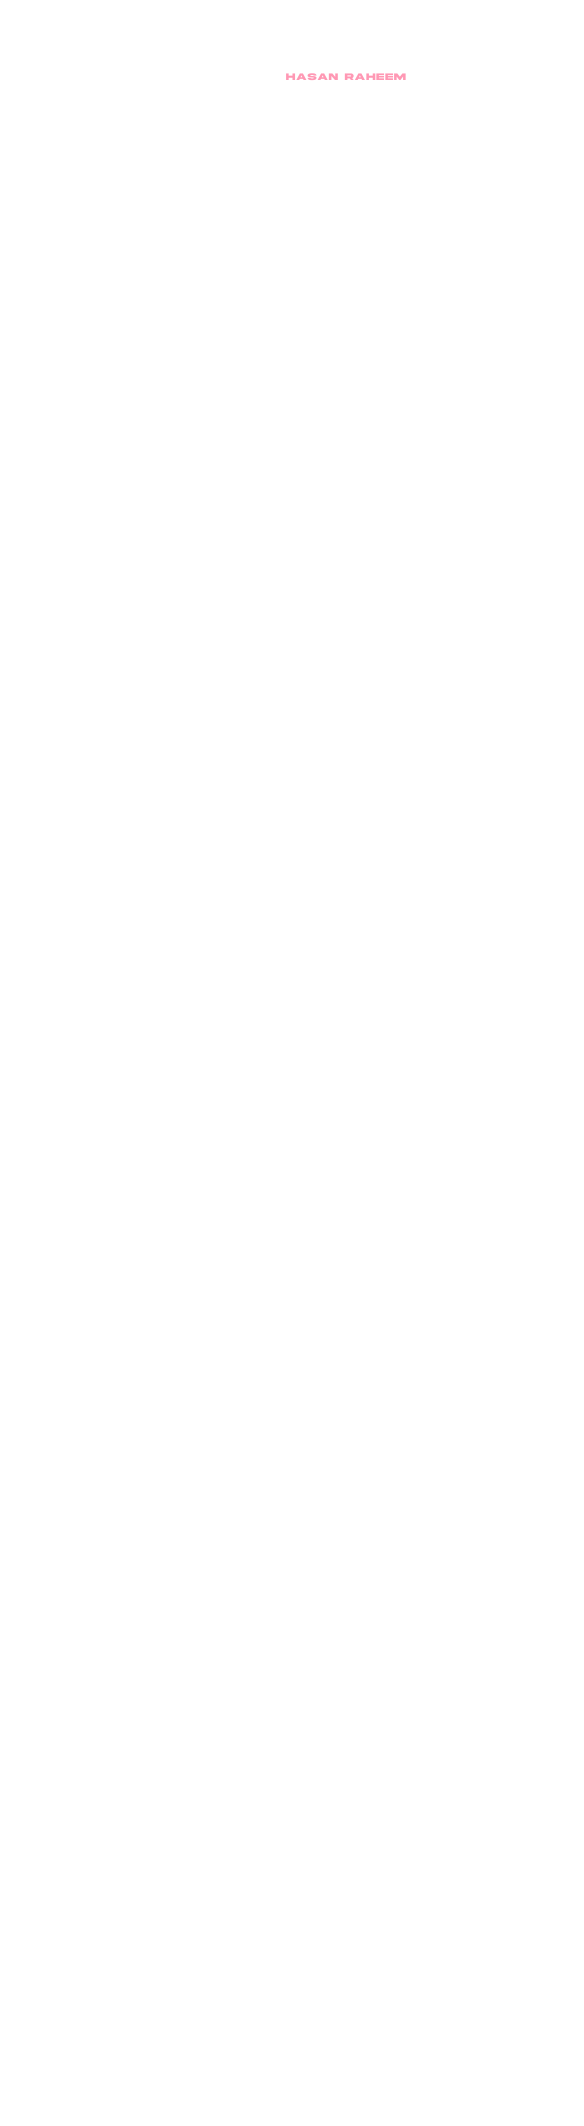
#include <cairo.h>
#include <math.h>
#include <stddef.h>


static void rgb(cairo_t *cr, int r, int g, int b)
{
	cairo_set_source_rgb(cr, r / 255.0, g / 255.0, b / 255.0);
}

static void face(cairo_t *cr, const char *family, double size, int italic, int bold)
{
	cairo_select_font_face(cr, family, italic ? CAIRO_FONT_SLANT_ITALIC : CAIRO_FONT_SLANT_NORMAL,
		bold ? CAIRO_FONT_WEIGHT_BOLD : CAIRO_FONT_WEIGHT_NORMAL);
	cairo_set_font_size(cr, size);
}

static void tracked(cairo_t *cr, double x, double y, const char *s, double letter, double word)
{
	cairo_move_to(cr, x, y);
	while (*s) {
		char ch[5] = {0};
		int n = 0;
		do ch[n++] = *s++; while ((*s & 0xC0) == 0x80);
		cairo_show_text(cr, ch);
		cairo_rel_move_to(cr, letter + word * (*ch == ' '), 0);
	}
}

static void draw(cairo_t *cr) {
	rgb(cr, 255, 255, 255);
	cairo_paint(cr);
	face(cr, "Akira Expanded", 10, 0, 1);
	rgb(cr, 255, 152, 180);
	tracked(cr, 286, 80, "HASAN RAHEEM", 1, 0);
}

int main(void) {
	cairo_surface_t *surface = cairo_image_surface_create(CAIRO_FORMAT_RGB24, 584, 2126);
	cairo_t *cr = cairo_create(surface);
	cairo_font_options_t *options = cairo_font_options_create();
	cairo_font_options_set_hint_metrics(options, CAIRO_HINT_METRICS_OFF);
	cairo_font_options_set_hint_style(options, CAIRO_HINT_STYLE_NONE);
	cairo_set_font_options(cr, options);
	cairo_set_miter_limit(cr, 4);
	draw(cr);
	cairo_surface_write_to_png(surface, "render.png");
	cairo_font_options_destroy(options);
	cairo_destroy(cr);
	cairo_surface_destroy(surface);
	return 0;
}
